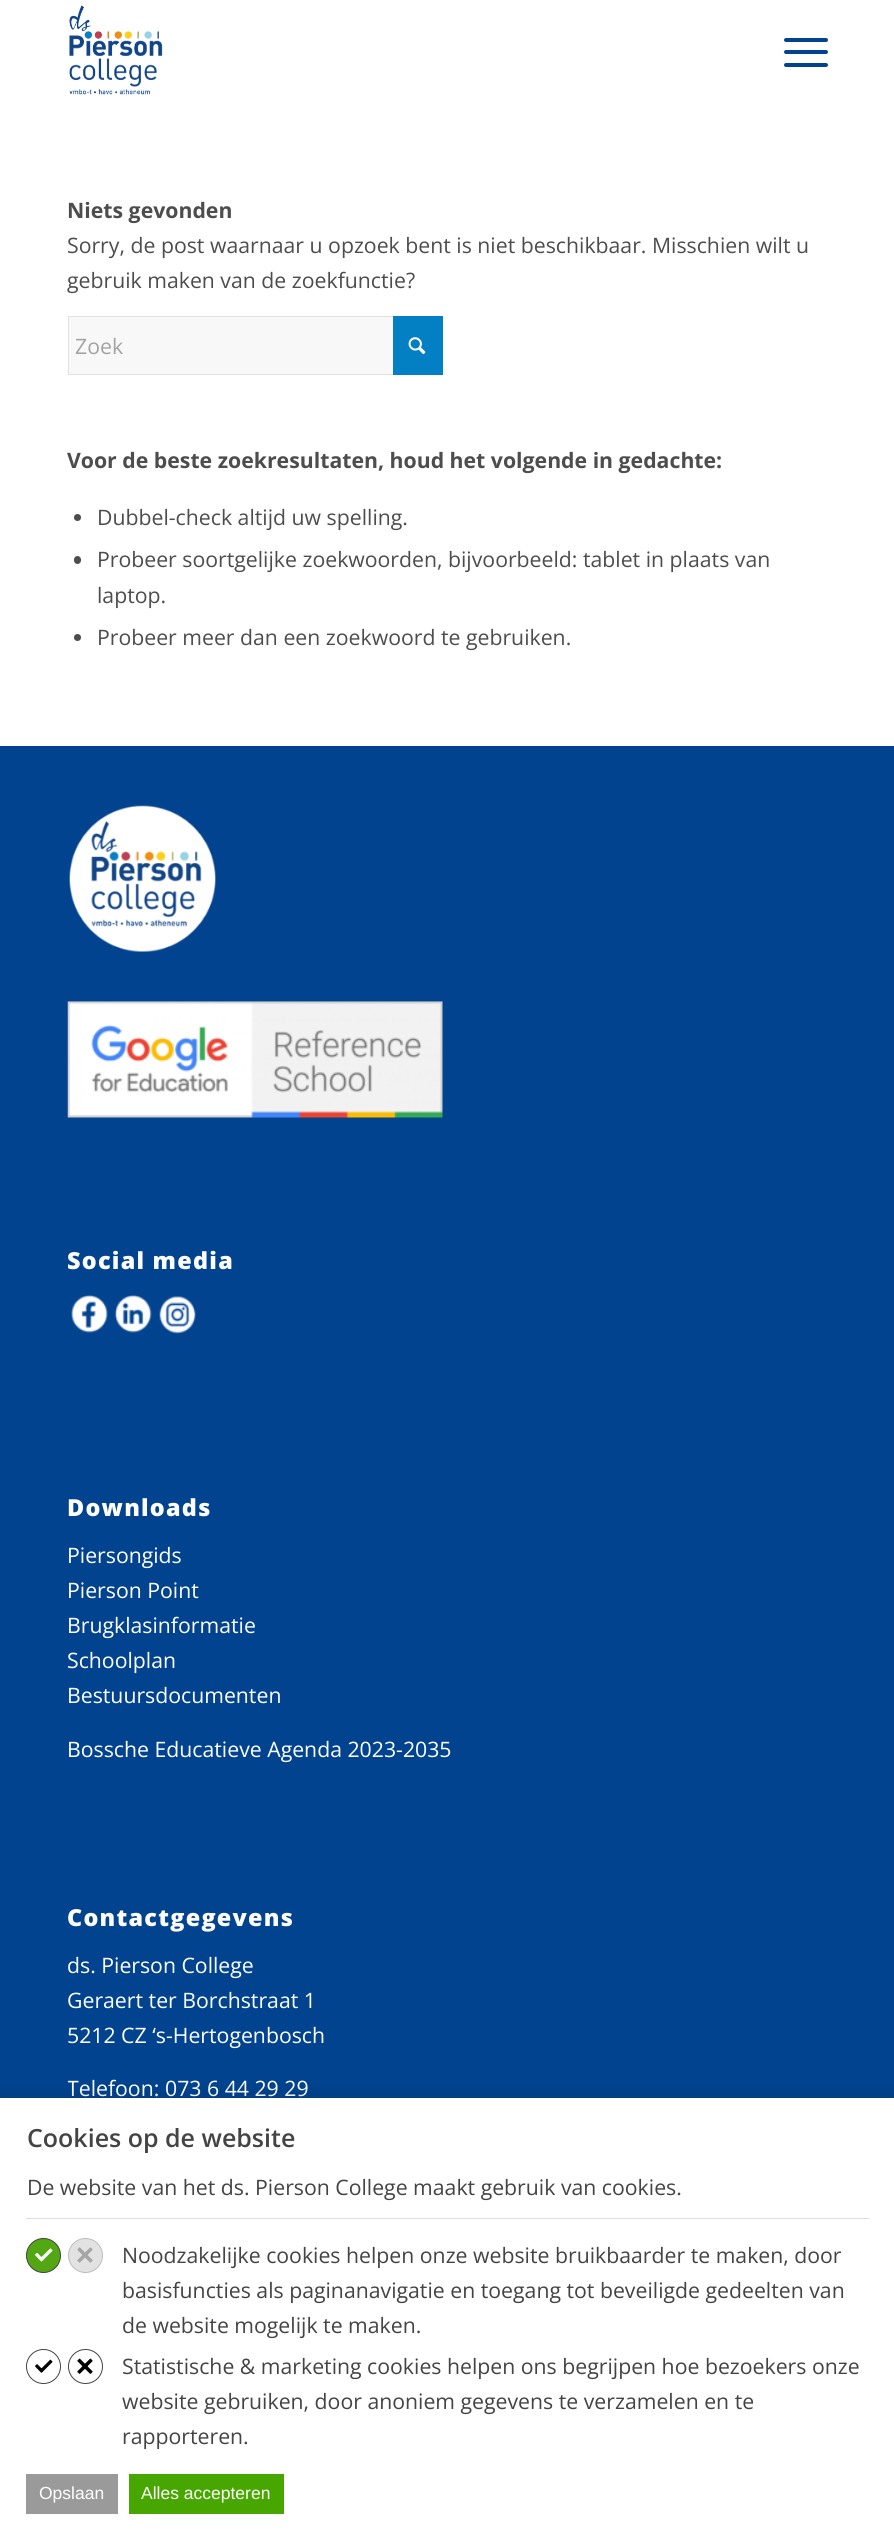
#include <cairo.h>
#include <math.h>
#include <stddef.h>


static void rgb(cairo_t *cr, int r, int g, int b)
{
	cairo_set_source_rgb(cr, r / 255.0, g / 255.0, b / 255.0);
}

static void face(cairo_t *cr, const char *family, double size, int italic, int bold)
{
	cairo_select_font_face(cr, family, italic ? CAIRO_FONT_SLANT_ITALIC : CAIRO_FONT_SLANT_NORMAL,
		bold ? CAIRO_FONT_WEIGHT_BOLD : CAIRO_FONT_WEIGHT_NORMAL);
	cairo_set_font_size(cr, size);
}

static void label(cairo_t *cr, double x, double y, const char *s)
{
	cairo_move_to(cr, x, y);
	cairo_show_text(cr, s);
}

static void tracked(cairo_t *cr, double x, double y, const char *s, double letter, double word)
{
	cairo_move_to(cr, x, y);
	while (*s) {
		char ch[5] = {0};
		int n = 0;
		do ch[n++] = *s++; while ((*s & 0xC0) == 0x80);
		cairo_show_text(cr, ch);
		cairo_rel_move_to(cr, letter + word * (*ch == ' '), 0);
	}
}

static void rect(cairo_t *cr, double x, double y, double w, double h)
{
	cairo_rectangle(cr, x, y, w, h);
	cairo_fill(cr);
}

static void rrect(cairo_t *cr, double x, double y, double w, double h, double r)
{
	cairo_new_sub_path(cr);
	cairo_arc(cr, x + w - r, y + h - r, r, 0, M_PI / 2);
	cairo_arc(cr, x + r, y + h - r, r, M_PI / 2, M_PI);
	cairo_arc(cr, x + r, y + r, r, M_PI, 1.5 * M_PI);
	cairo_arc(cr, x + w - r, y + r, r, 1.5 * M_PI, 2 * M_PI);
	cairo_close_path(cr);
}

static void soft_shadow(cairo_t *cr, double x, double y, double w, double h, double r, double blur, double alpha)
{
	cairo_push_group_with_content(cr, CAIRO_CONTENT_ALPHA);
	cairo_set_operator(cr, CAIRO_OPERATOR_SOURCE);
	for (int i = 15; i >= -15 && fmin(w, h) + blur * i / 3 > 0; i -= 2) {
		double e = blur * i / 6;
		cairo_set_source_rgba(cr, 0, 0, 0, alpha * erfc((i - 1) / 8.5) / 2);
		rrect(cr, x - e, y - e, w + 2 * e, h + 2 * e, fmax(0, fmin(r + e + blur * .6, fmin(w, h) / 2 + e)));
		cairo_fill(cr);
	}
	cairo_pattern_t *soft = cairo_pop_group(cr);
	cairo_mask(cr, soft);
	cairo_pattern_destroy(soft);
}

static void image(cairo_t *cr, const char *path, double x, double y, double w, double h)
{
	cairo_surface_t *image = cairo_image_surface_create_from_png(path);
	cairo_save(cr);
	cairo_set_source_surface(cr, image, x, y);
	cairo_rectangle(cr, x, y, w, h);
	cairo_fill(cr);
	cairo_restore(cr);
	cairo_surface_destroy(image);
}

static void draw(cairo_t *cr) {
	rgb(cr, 255, 255, 255);
	cairo_paint(cr);
	image(cr, "image0.png", 69, 5, 94, 90);
	rgb(cr, 1, 67, 143);
	rrect(cr, 784, 50, 44, 4, 2);
	cairo_fill(cr);
	rrect(cr, 784, 38, 44, 4, 2);
	cairo_fill(cr);
	rrect(cr, 784, 63, 44, 4, 2);
	cairo_fill(cr);
	face(cr, "Open Sans", 21.25, 0, 1);
	rgb(cr, 77, 77, 77);
	label(cr, 67, 218, "Niets gevonden");
	face(cr, "Open Sans", 21.25, 0, 0);
	label(cr, 67, 253, "Sorry, de post waarnaar u opzoek bent is niet beschikbaar. Misschien wilt u");
	label(cr, 67, 288, "gebruik maken van de zoekfunctie?");
	rgb(cr, 248, 248, 248);
	rect(cr, 69, 317, 324, 57);
	cairo_rectangle(cr, 68.5, 316.5, 374, 58);
	rgb(cr, 225, 225, 225);
	cairo_set_line_width(cr, 1);
	cairo_stroke(cr);
	rgb(cr, 163, 163, 163);
	label(cr, 75, 354, "Zoek");
	rgb(cr, 3, 128, 196);
	rect(cr, 393, 316, 50, 59);
	image(cr, "image1.png", 408, 337, 18, 17);
	face(cr, "Open Sans", 21.25, 0, 1);
	rgb(cr, 77, 77, 77);
	label(cr, 67, 468, "Voor de beste zoekresultaten, houd het volgende in gedachte:");
	cairo_new_path(cr);
	cairo_arc(cr, 77.5, 517.5, 3.5, 0, 2 * M_PI);
	cairo_fill(cr);
	face(cr, "Open Sans", 21.25, 0, 0);
	label(cr, 97, 525, "Dubbel-check altijd uw spelling.");
	rrect(cr, 74, 556, 7, 8, 3.5);
	cairo_fill(cr);
	label(cr, 97, 567, "Probeer soortgelijke zoekwoorden, bijvoorbeeld: tablet in plaats van");
	label(cr, 97, 603, "laptop.");
	cairo_new_path(cr);
	cairo_arc(cr, 77.5, 637.5, 3.5, 0, 2 * M_PI);
	cairo_fill(cr);
	label(cr, 97, 645, "Probeer meer dan een zoekwoord te gebruiken.");
	rgb(cr, 1, 67, 143);
	rect(cr, 0, 746, 894, 1352);
	image(cr, "image2.png", 69, 805, 147, 147);
	image(cr, "image3.png", 67, 1001, 376, 117);
	face(cr, "Open Sans ExtraBold", 23.4, 0, 0);
	rgb(cr, 255, 255, 255);
	tracked(cr, 67, 1269, "Social media", 1.25, 0);
	image(cr, "image4.png", 71, 1295, 37, 38);
	image(cr, "image5.png", 114, 1295, 38, 38);
	image(cr, "image6.png", 159, 1296, 37, 38);
	tracked(cr, 67, 1516, "Downloads", 1.25, 0);
	face(cr, "Open Sans", 21.25, 0, 0);
	label(cr, 67, 1563, "Piersongids");
	label(cr, 67, 1598, "Pierson Point");
	label(cr, 67, 1633, "Brugklasinformatie");
	label(cr, 67, 1668, "Schoolplan");
	label(cr, 67, 1703, "Bestuursdocumenten");
	label(cr, 67, 1757, "Bossche Educatieve Agenda 2023-2035");
	face(cr, "Open Sans ExtraBold", 23.4, 0, 0);
	tracked(cr, 67, 1926, "Contactgegevens", 1.25, 0);
	face(cr, "Open Sans", 21.25, 0, 0);
	label(cr, 67, 1973, "ds. Pierson College");
	label(cr, 67, 2008, "Geraert ter Borchstraat 1");
	label(cr, 67, 2043, "5212 CZ ‘s-Hertogenbosch");
	cairo_save(cr);
	cairo_rectangle(cr, 68, 1885, 760, 275);
	cairo_clip(cr);
	label(cr, 67, 2096, "Telefoon:");
	cairo_restore(cr);
	label(cr, 165, 2096, "073 6 44 29 29");
	rgb(cr, 0, 0, 0);
	soft_shadow(cr, 0, 2093, 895, 442, 0, 6, 0.1);
	rgb(cr, 255, 255, 255);
	rect(cr, 0, 2098, 894, 442);
	face(cr, "Open Sans SemiBold", 25, 0, 0);
	rgb(cr, 68, 68, 68);
	label(cr, 27, 2147, "Cookies op de website");
	rgb(cr, 222, 222, 222);
	rect(cr, 26, 2218, 843, 1);
	face(cr, "Open Sans", 21.25, 0, 0);
	rgb(cr, 68, 68, 68);
	label(cr, 27, 2195, "De website van het ds. Pierson College maakt gebruik van cookies.");
	rgb(cr, 83, 167, 19);
	cairo_new_path(cr);
	cairo_arc(cr, 43.5, 2255.5, 17, 0, 2 * M_PI);
	cairo_fill_preserve(cr);
	rgb(cr, 68, 68, 68);
	cairo_stroke(cr);
	image(cr, "image7.png", 35, 2248, 18, 14);
	rgb(cr, 226, 226, 226);
	cairo_arc(cr, 85.5, 2255.5, 17, 0, 2 * M_PI);
	cairo_fill_preserve(cr);
	rgb(cr, 189, 189, 189);
	cairo_stroke(cr);
	image(cr, "image8.png", 77, 2247, 16, 16);
	rgb(cr, 68, 68, 68);
	label(cr, 122, 2263, "Noodzakelijke cookies helpen onze website bruikbaarder te maken, door");
	label(cr, 122, 2298, "basisfuncties als paginanavigatie en toegang tot beveiligde gedeelten van");
	label(cr, 122, 2333, "de website mogelijk te maken.");
	cairo_new_path(cr);
	cairo_arc(cr, 43.5, 2366.5, 17, 0, 2 * M_PI);
	cairo_stroke(cr);
	image(cr, "image9.png", 35, 2359, 18, 14);
	cairo_arc(cr, 85.5, 2366.5, 17, 0, 2 * M_PI);
	cairo_stroke(cr);
	image(cr, "image10.png", 77, 2358, 16, 16);
	label(cr, 122, 2374, "Statistische & marketing cookies helpen ons begrijpen hoe bezoekers onze");
	label(cr, 122, 2409, "website gebruiken, door anoniem gegevens te verzamelen en te");
	label(cr, 122, 2444, "rapporteren.");
	rgb(cr, 154, 154, 154);
	rect(cr, 26, 2474, 92, 40);
	face(cr, "Liberation Sans", 17.5, 0, 0);
	rgb(cr, 255, 255, 255);
	label(cr, 39, 2499, "Opslaan");
	rgb(cr, 71, 167, 0);
	rect(cr, 129, 2474, 155, 40);
	rgb(cr, 255, 255, 255);
	label(cr, 141, 2499, "Alles accepteren");
}

int main(void) {
	cairo_surface_t *surface = cairo_image_surface_create(CAIRO_FORMAT_RGB24, 894, 2540);
	cairo_t *cr = cairo_create(surface);
	cairo_font_options_t *options = cairo_font_options_create();
	cairo_font_options_set_hint_metrics(options, CAIRO_HINT_METRICS_OFF);
	cairo_font_options_set_hint_style(options, CAIRO_HINT_STYLE_NONE);
	cairo_set_font_options(cr, options);
	cairo_set_miter_limit(cr, 4);
	draw(cr);
	cairo_surface_write_to_png(surface, "render.png");
	cairo_font_options_destroy(options);
	cairo_destroy(cr);
	cairo_surface_destroy(surface);
	return 0;
}
